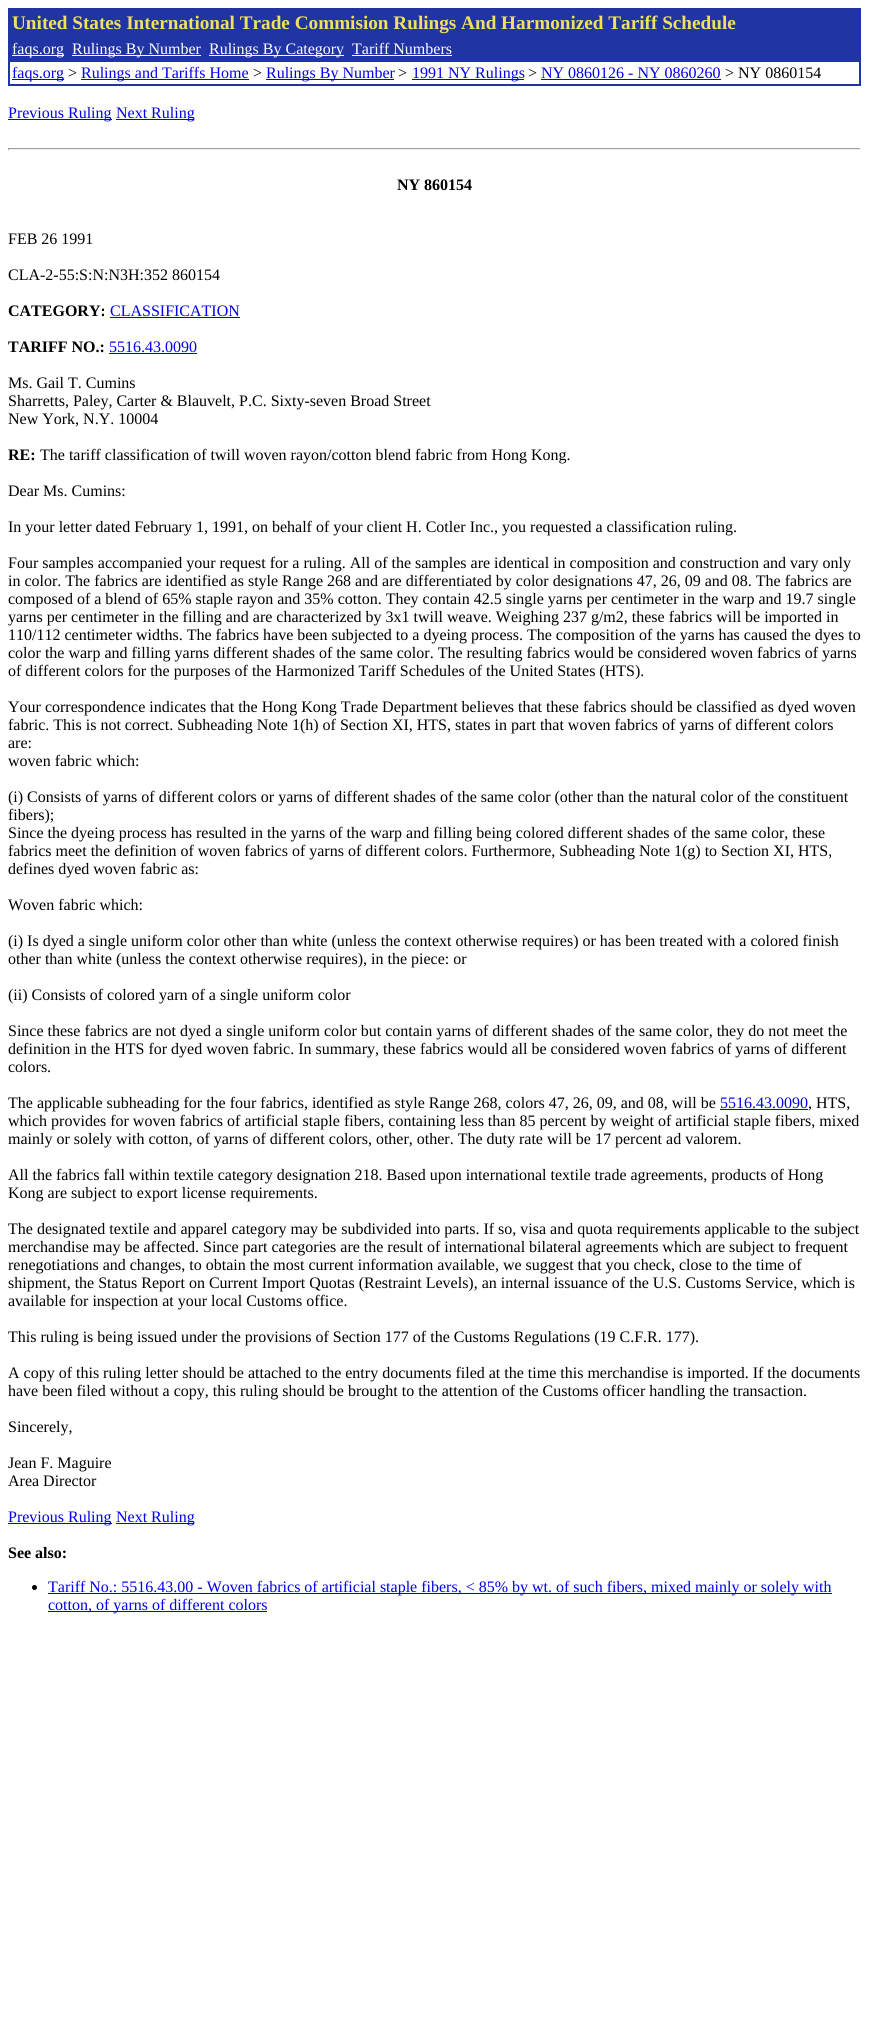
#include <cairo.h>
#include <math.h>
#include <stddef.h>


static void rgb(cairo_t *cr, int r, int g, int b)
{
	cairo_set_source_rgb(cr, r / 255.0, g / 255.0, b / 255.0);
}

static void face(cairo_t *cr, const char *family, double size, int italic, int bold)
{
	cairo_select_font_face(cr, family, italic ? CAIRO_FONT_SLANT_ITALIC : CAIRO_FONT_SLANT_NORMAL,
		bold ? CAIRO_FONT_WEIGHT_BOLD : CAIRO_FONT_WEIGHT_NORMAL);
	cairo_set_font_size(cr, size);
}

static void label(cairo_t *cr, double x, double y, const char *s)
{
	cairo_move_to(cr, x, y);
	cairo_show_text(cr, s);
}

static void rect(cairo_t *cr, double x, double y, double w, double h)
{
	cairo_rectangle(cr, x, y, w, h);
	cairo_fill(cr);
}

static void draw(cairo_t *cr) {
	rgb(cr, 255, 255, 255);
	cairo_paint(cr);
	rgb(cr, 33, 52, 163);
	rect(cr, 8, 8, 853, 78);
	face(cr, "Liberation Serif", 19.2, 0, 1);
	rgb(cr, 239, 225, 93);
	label(cr, 12, 29, "United States International Trade Commision Rulings And Harmonized Tariff Schedule");
	rgb(cr, 255, 255, 255);
	rect(cr, 12, 55, 52, 1);
	face(cr, "Liberation Serif", 16, 0, 0);
	label(cr, 12, 54, "faqs.org");
	rect(cr, 72, 55, 129, 1);
	label(cr, 72, 54, "Rulings By Number");
	rect(cr, 209, 55, 135, 1);
	label(cr, 209, 54, "Rulings By Category");
	label(cr, 352, 54, "Tariff Numbers");
	rect(cr, 352, 55, 100, 1);
	rect(cr, 10, 62, 849, 22);
	rgb(cr, 0, 0, 238);
	rect(cr, 12, 79, 52, 1);
	label(cr, 12, 78, "faqs.org");
	rgb(cr, 0, 0, 0);
	label(cr, 68, 78, ">");
	rgb(cr, 0, 0, 238);
	rect(cr, 81, 79, 168, 1);
	label(cr, 81, 78, "Rulings and Tariffs Home");
	rgb(cr, 0, 0, 0);
	label(cr, 253, 78, ">");
	rgb(cr, 0, 0, 238);
	rect(cr, 266, 79, 128, 1);
	label(cr, 266, 78, "Rulings By Number");
	rgb(cr, 0, 0, 0);
	label(cr, 398, 78, ">");
	rgb(cr, 0, 0, 238);
	rect(cr, 412, 79, 112, 1);
	label(cr, 412, 78, "1991 NY Rulings");
	rgb(cr, 0, 0, 0);
	label(cr, 528, 78, ">");
	rgb(cr, 0, 0, 238);
	label(cr, 541, 78, "NY 0860126 - NY 0860260");
	rect(cr, 541, 79, 180, 1);
	rgb(cr, 0, 0, 0);
	label(cr, 725, 78, "> NY 0860154");
	rgb(cr, 0, 0, 238);
	rect(cr, 8, 119, 104, 1);
	label(cr, 8, 118, "Previous Ruling");
	rect(cr, 116, 119, 78, 1);
	label(cr, 116, 118, "Next Ruling");
	rgb(cr, 159, 159, 159);
	rect(cr, 8, 148, 853, 1);
	rgb(cr, 238, 238, 238);
	rect(cr, 860, 148, 1, 2);
	rect(cr, 8, 149, 853, 1);
	rgb(cr, 159, 159, 159);
	rect(cr, 8, 148, 1, 2);
	face(cr, "Liberation Serif", 16, 0, 1);
	rgb(cr, 0, 0, 0);
	label(cr, 397, 190, "NY 860154");
	face(cr, "Liberation Serif", 16, 0, 0);
	label(cr, 8, 244, "FEB 26 1991");
	label(cr, 8, 280, "CLA-2-55:S:N:N3H:352 860154");
	face(cr, "Liberation Serif", 16, 0, 1);
	label(cr, 8, 316, "CATEGORY:");
	face(cr, "Liberation Serif", 16, 0, 0);
	rgb(cr, 0, 0, 238);
	label(cr, 110, 316, "CLASSIFICATION");
	rect(cr, 110, 317, 130, 1);
	face(cr, "Liberation Serif", 16, 0, 1);
	rgb(cr, 0, 0, 0);
	label(cr, 8, 352, "TARIFF NO.:");
	face(cr, "Liberation Serif", 16, 0, 0);
	rgb(cr, 0, 0, 238);
	label(cr, 109, 352, "5516.43.0090");
	rect(cr, 109, 353, 88, 1);
	rgb(cr, 0, 0, 0);
	label(cr, 8, 388, "Ms. Gail T. Cumins");
	label(cr, 8, 406, "Sharretts, Paley, Carter & Blauvelt, P.C. Sixty-seven Broad Street");
	label(cr, 8, 424, "New York, N.Y. 10004");
	face(cr, "Liberation Serif", 16, 0, 1);
	label(cr, 8, 460, "RE:");
	face(cr, "Liberation Serif", 16, 0, 0);
	label(cr, 40, 460, "The tariff classification of twill woven rayon/cotton blend fabric from Hong Kong.");
	label(cr, 8, 496, "Dear Ms. Cumins:");
	label(cr, 8, 532, "In your letter dated February 1, 1991, on behalf of your client H. Cotler Inc., you requested a classification ruling.");
	label(cr, 8, 568, "Four samples accompanied your request for a ruling. All of the samples are identical in composition and construction and vary only");
	label(cr, 8, 586, "in color. The fabrics are identified as style Range 268 and are differentiated by color designations 47, 26, 09 and 08. The fabrics are");
	label(cr, 8, 604, "composed of a blend of 65% staple rayon and 35% cotton. They contain 42.5 single yarns per centimeter in the warp and 19.7 single");
	label(cr, 8, 622, "yarns per centimeter in the filling and are characterized by 3x1 twill weave. Weighing 237 g/m2, these fabrics will be imported in");
	label(cr, 8, 640, "110/112 centimeter widths. The fabrics have been subjected to a dyeing process. The composition of the yarns has caused the dyes to");
	label(cr, 8, 658, "color the warp and filling yarns different shades of the same color. The resulting fabrics would be considered woven fabrics of yarns");
	label(cr, 8, 676, "of different colors for the purposes of the Harmonized Tariff Schedules of the United States (HTS).");
	label(cr, 8, 712, "Your correspondence indicates that the Hong Kong Trade Department believes that these fabrics should be classified as dyed woven");
	label(cr, 8, 730, "fabric. This is not correct. Subheading Note 1(h) of Section XI, HTS, states in part that woven fabrics of yarns of different colors");
	label(cr, 8, 748, "are:");
	label(cr, 8, 766, "woven fabric which:");
	label(cr, 8, 802, "(i) Consists of yarns of different colors or yarns of different shades of the same color (other than the natural color of the constituent");
	label(cr, 8, 820, "fibers);");
	label(cr, 8, 838, "Since the dyeing process has resulted in the yarns of the warp and filling being colored different shades of the same color, these");
	label(cr, 8, 856, "fabrics meet the definition of woven fabrics of yarns of different colors. Furthermore, Subheading Note 1(g) to Section XI, HTS,");
	label(cr, 8, 874, "defines dyed woven fabric as:");
	label(cr, 8, 910, "Woven fabric which:");
	label(cr, 8, 946, "(i) Is dyed a single uniform color other than white (unless the context otherwise requires) or has been treated with a colored finish");
	label(cr, 8, 964, "other than white (unless the context otherwise requires), in the piece: or");
	label(cr, 8, 1000, "(ii) Consists of colored yarn of a single uniform color");
	label(cr, 8, 1036, "Since these fabrics are not dyed a single uniform color but contain yarns of different shades of the same color, they do not meet the");
	label(cr, 8, 1054, "definition in the HTS for dyed woven fabric. In summary, these fabrics would all be considered woven fabrics of yarns of different");
	label(cr, 8, 1072, "colors.");
	label(cr, 8, 1108, "The applicable subheading for the four fabrics, identified as style Range 268, colors 47, 26, 09, and 08, will be");
	rgb(cr, 0, 0, 238);
	label(cr, 720, 1108, "5516.43.0090");
	rect(cr, 720, 1109, 88, 1);
	rgb(cr, 0, 0, 0);
	label(cr, 808, 1108, ", HTS,");
	label(cr, 8, 1126, "which provides for woven fabrics of artificial staple fibers, containing less than 85 percent by weight of artificial staple fibers, mixed");
	label(cr, 8, 1144, "mainly or solely with cotton, of yarns of different colors, other, other. The duty rate will be 17 percent ad valorem.");
	label(cr, 8, 1180, "All the fabrics fall within textile category designation 218. Based upon international textile trade agreements, products of Hong");
	label(cr, 8, 1198, "Kong are subject to export license requirements.");
	label(cr, 8, 1234, "The designated textile and apparel category may be subdivided into parts. If so, visa and quota requirements applicable to the subject");
	label(cr, 8, 1252, "merchandise may be affected. Since part categories are the result of international bilateral agreements which are subject to frequent");
	label(cr, 8, 1270, "renegotiations and changes, to obtain the most current information available, we suggest that you check, close to the time of");
	label(cr, 8, 1288, "shipment, the Status Report on Current Import Quotas (Restraint Levels), an internal issuance of the U.S. Customs Service, which is");
	label(cr, 8, 1306, "available for inspection at your local Customs office.");
	label(cr, 8, 1342, "This ruling is being issued under the provisions of Section 177 of the Customs Regulations (19 C.F.R. 177).");
	label(cr, 8, 1378, "A copy of this ruling letter should be attached to the entry documents filed at the time this merchandise is imported. If the documents");
	label(cr, 8, 1396, "have been filed without a copy, this ruling should be brought to the attention of the Customs officer handling the transaction.");
	label(cr, 8, 1432, "Sincerely,");
	label(cr, 8, 1468, "Jean F. Maguire");
	label(cr, 8, 1486, "Area Director");
	rgb(cr, 0, 0, 238);
	rect(cr, 8, 1523, 104, 1);
	label(cr, 8, 1522, "Previous Ruling");
	rect(cr, 116, 1523, 78, 1);
	label(cr, 116, 1522, "Next Ruling");
	face(cr, "Liberation Serif", 16, 0, 1);
	rgb(cr, 0, 0, 0);
	label(cr, 8, 1558, "See also:");
	cairo_new_path(cr);
	cairo_arc(cr, 34.5, 1587.5, 2.5, 0, 2 * M_PI);
	cairo_fill(cr);
	rgb(cr, 0, 0, 238);
	rect(cr, 48, 1593, 784, 1);
	face(cr, "Liberation Serif", 16, 0, 0);
	label(cr, 48, 1592, "Tariff No.: 5516.43.00 - Woven fabrics of artificial staple fibers, < 85% by wt. of such fibers, mixed mainly or solely with");
	rect(cr, 48, 1611, 219, 1);
	label(cr, 48, 1610, "cotton, of yarns of different colors");
}

int main(void) {
	cairo_surface_t *surface = cairo_image_surface_create(CAIRO_FORMAT_RGB24, 869, 2041);
	cairo_t *cr = cairo_create(surface);
	cairo_font_options_t *options = cairo_font_options_create();
	cairo_font_options_set_hint_metrics(options, CAIRO_HINT_METRICS_OFF);
	cairo_font_options_set_hint_style(options, CAIRO_HINT_STYLE_NONE);
	cairo_set_font_options(cr, options);
	cairo_set_miter_limit(cr, 4);
	draw(cr);
	cairo_surface_write_to_png(surface, "render.png");
	cairo_font_options_destroy(options);
	cairo_destroy(cr);
	cairo_surface_destroy(surface);
	return 0;
}
